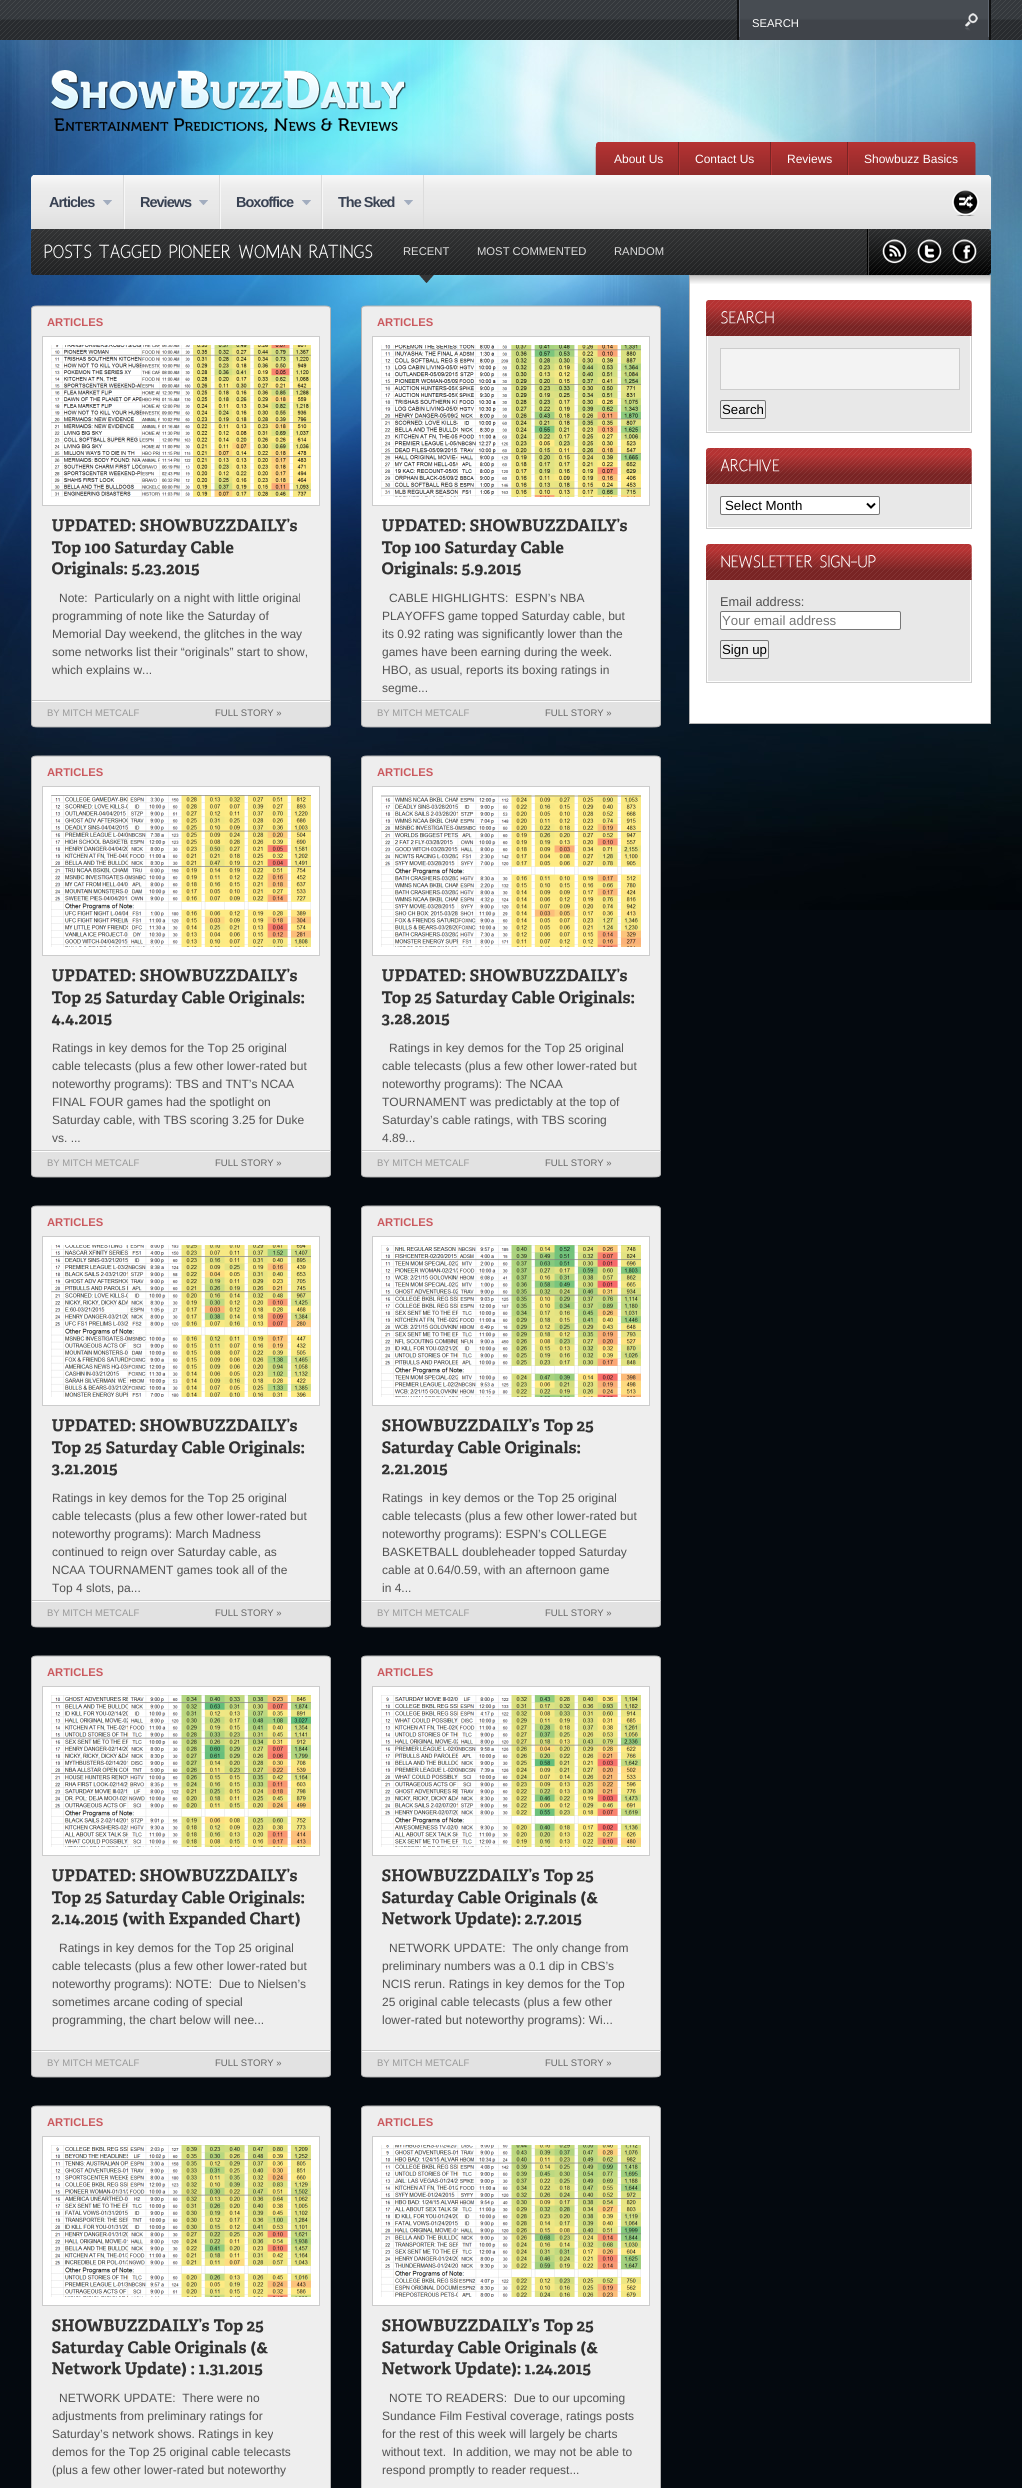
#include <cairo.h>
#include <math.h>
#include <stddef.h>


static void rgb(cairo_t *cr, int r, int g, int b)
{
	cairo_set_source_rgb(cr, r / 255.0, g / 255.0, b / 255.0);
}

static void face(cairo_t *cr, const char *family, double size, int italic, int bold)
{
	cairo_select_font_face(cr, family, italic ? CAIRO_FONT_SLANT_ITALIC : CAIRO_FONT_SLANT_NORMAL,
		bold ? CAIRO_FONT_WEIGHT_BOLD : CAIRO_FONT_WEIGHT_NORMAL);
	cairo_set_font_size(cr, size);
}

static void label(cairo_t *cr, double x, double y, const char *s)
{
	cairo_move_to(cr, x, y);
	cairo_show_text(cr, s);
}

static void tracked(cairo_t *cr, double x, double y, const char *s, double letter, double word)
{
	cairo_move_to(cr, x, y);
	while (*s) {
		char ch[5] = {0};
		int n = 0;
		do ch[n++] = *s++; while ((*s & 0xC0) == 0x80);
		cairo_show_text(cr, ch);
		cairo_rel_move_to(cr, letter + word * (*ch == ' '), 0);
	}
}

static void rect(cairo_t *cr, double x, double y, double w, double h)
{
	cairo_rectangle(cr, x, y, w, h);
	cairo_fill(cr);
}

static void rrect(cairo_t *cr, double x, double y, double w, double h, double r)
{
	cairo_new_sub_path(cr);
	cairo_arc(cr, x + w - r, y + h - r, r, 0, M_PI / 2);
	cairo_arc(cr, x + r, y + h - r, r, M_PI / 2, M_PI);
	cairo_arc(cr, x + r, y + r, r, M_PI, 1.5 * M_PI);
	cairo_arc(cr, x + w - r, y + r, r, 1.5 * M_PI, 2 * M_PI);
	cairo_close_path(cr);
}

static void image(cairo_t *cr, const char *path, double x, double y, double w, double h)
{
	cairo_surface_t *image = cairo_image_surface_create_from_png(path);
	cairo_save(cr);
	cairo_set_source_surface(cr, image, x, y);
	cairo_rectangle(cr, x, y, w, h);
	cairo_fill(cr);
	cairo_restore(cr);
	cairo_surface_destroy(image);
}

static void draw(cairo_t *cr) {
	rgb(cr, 4, 9, 15);
	cairo_paint(cr);
	image(cr, "image0.png", 0, 40, 1022, 870);
	image(cr, "image1.png", 0, 0, 1022, 40);
	image(cr, "image2.png", 739, 0, 250, 40);
	rgb(cr, 16, 17, 18);
	rect(cr, 989, 0, 2, 40);
	rect(cr, 737, 0, 2, 40);
	image(cr, "image3.png", 965, 13, 13, 18);
	rgb(cr, 95, 101, 110);
	rect(cr, 988, 0, 1, 37);
	rect(cr, 739, 0, 1, 37);
	face(cr, "Liberation Sans", 11.25, 0, 0);
	rgb(cr, 255, 255, 255);
	label(cr, 752, 27, "SEARCH");
	image(cr, "image4.png", 51, 70, 355, 62);
	image(cr, "image6.png", 598, 142, 376, 33);
	image(cr, "image5.png", 595, 142, 4, 33);
	rgb(cr, 121, 36, 36);
	rect(cr, 678, 142, 1, 33);
	face(cr, "Liberation Sans", 12, 0, 0);
	rgb(cr, 255, 255, 255);
	label(cr, 614, 163, "About Us");
	rgb(cr, 121, 36, 36);
	rect(cr, 770, 142, 1, 33);
	rgb(cr, 181, 51, 51);
	rect(cr, 679, 142, 1, 33);
	rgb(cr, 255, 255, 255);
	label(cr, 695, 163, "Contact Us");
	rgb(cr, 121, 36, 36);
	rect(cr, 847, 142, 1, 33);
	rgb(cr, 181, 51, 51);
	rect(cr, 771, 142, 1, 33);
	rgb(cr, 255, 255, 255);
	label(cr, 787, 163, "Reviews");
	rgb(cr, 181, 51, 51);
	rect(cr, 848, 142, 1, 33);
	rgb(cr, 255, 255, 255);
	label(cr, 864, 163, "Showbuzz Basics");
	image(cr, "image7.png", 973, 142, 3, 33);
	image(cr, "image9.png", 33, 175, 956, 54);
	image(cr, "image8.png", 31, 175, 3, 54);
	rgb(cr, 220, 220, 220);
	rect(cr, 123, 175, 1, 54);
	face(cr, "Liberation Sans", 14.5, 0, 1);
	rgb(cr, 57, 66, 83);
	tracked(cr, 49, 207, "Articles", -1, 0);
	image(cr, "image10.png", 103, 200, 9, 5);
	rgb(cr, 220, 220, 220);
	rect(cr, 219, 175, 1, 54);
	rgb(cr, 247, 247, 247);
	rect(cr, 124, 175, 1, 54);
	rgb(cr, 57, 66, 83);
	tracked(cr, 140, 207, "Reviews", -1, 0);
	image(cr, "image10.png", 199, 200, 9, 5);
	rgb(cr, 220, 220, 220);
	rect(cr, 321, 175, 1, 54);
	rgb(cr, 247, 247, 247);
	rect(cr, 220, 175, 1, 54);
	rgb(cr, 57, 66, 83);
	tracked(cr, 236, 207, "Boxoffice", -1, 0);
	image(cr, "image10.png", 302, 200, 9, 5);
	rgb(cr, 220, 220, 220);
	rect(cr, 423, 175, 1, 54);
	rgb(cr, 247, 247, 247);
	rect(cr, 322, 175, 1, 54);
	rgb(cr, 57, 66, 83);
	tracked(cr, 338, 207, "The Sked", -1, 0);
	image(cr, "image10.png", 404, 200, 9, 5);
	image(cr, "image11.png", 952, 190, 27, 26);
	image(cr, "image12.png", 989, 175, 2, 54);
	image(cr, "image13.png", 31, 229, 3, 46);
	image(cr, "image14.png", 34, 229, 833, 46);
	rgb(cr, 0, 0, 0);
	rect(cr, 867, 229, 1, 46);
	image(cr, "image15.png", 44, 244, 48, 15);
	image(cr, "image16.png", 99, 244, 62, 15);
	image(cr, "image17.png", 169, 244, 62, 15);
	image(cr, "image18.png", 239, 244, 62, 15);
	image(cr, "image19.png", 309, 244, 64, 15);
	image(cr, "image20.png", 419, 275, 15, 8);
	face(cr, "Liberation Sans", 11.25, 0, 0);
	rgb(cr, 221, 221, 221);
	label(cr, 403, 255, "RECENT");
	label(cr, 477, 255, "MOST COMMENTED");
	label(cr, 614, 255, "RANDOM");
	image(cr, "image21.png", 869, 229, 119, 46);
	rgb(cr, 72, 72, 72);
	rect(cr, 868, 229, 1, 46);
	image(cr, "image22.png", 882, 239, 25, 25);
	image(cr, "image23.png", 917, 239, 25, 25);
	image(cr, "image24.png", 952, 239, 25, 25);
	image(cr, "image25.png", 988, 229, 3, 46);
	image(cr, "image26.png", 31, 305, 300, 4);
	rgb(cr, 238, 238, 238);
	rect(cr, 32, 309, 298, 391);
	rgb(cr, 181, 181, 181);
	rect(cr, 330, 309, 1, 392);
	rgb(cr, 201, 201, 201);
	rect(cr, 31, 700, 300, 1);
	rgb(cr, 181, 181, 181);
	rect(cr, 31, 309, 1, 392);
	face(cr, "Liberation Sans", 11.25, 0, 1);
	rgb(cr, 203, 90, 95);
	label(cr, 47, 326, "ARTICLES");
	rgb(cr, 255, 255, 255);
	cairo_rectangle(cr, 42.5, 336.5, 277, 169);
	cairo_fill_preserve(cr);
	rgb(cr, 204, 204, 204);
	cairo_set_line_width(cr, 1);
	cairo_stroke(cr);
	image(cr, "image27.png", 51, 345, 260, 152);
	image(cr, "image28.png", 52, 519, 84, 13);
	image(cr, "image29.png", 140, 518, 157, 14);
	image(cr, "image30.png", 51, 541, 30, 16);
	image(cr, "image31.png", 85, 543, 26, 11);
	image(cr, "image32.png", 115, 540, 72, 17);
	image(cr, "image33.png", 191, 540, 43, 14);
	image(cr, "image34.png", 52, 561, 76, 17);
	image(cr, "image35.png", 131, 563, 69, 13);
	face(cr, "Liberation Sans", 12, 0, 0);
	rgb(cr, 82, 82, 82);
	label(cr, 59, 602, "Note:  Particularly on a night with little original");
	label(cr, 52, 620, "programming of note like the Saturday of");
	label(cr, 52, 638, "Memorial Day weekend, the glitches in the way");
	label(cr, 52, 656, "some networks list their “originals” start to show,");
	label(cr, 52, 674, "which explains w...");
	rgb(cr, 226, 226, 226);
	rect(cr, 32, 702, 298, 22);
	rgb(cr, 255, 255, 255);
	rect(cr, 31, 701, 300, 1);
	rgb(cr, 181, 181, 181);
	rect(cr, 330, 701, 1, 23);
	rect(cr, 31, 701, 1, 23);
	face(cr, "Liberation Sans", 9.5, 0, 0);
	rgb(cr, 153, 153, 153);
	label(cr, 47, 716, "BY MITCH METCALF");
	rgb(cr, 102, 102, 102);
	label(cr, 215, 716, "FULL STORY »");
	image(cr, "image36.png", 31, 724, 300, 4);
	image(cr, "image37.png", 361, 305, 300, 4);
	rgb(cr, 238, 238, 238);
	rect(cr, 362, 309, 298, 391);
	rgb(cr, 181, 181, 181);
	rect(cr, 660, 309, 1, 392);
	rgb(cr, 201, 201, 201);
	rect(cr, 361, 700, 300, 1);
	rgb(cr, 181, 181, 181);
	rect(cr, 361, 309, 1, 392);
	face(cr, "Liberation Sans", 11.25, 0, 1);
	rgb(cr, 203, 90, 95);
	label(cr, 377, 326, "ARTICLES");
	rgb(cr, 255, 255, 255);
	cairo_rectangle(cr, 372.5, 336.5, 277, 169);
	cairo_fill_preserve(cr);
	rgb(cr, 204, 204, 204);
	cairo_stroke(cr);
	image(cr, "image38.png", 381, 345, 260, 152);
	image(cr, "image28.png", 382, 519, 84, 13);
	image(cr, "image29.png", 470, 518, 157, 14);
	image(cr, "image30.png", 381, 541, 30, 16);
	image(cr, "image31.png", 415, 543, 26, 11);
	image(cr, "image32.png", 445, 540, 72, 17);
	image(cr, "image33.png", 521, 540, 43, 14);
	image(cr, "image34.png", 382, 561, 76, 17);
	image(cr, "image39.png", 461, 563, 60, 13);
	face(cr, "Liberation Sans", 12, 0, 0);
	rgb(cr, 82, 82, 82);
	label(cr, 389, 602, "CABLE HIGHLIGHTS:  ESPN’s NBA");
	label(cr, 382, 620, "PLAYOFFS game topped Saturday cable, but");
	label(cr, 382, 638, "its 0.92 rating was significantly lower than the");
	label(cr, 382, 656, "games have been earning during the week.");
	label(cr, 382, 674, "HBO, as usual, reports its boxing ratings in");
	label(cr, 382, 692, "segme...");
	rgb(cr, 226, 226, 226);
	rect(cr, 362, 702, 298, 22);
	rgb(cr, 255, 255, 255);
	rect(cr, 361, 701, 300, 1);
	rgb(cr, 181, 181, 181);
	rect(cr, 660, 701, 1, 23);
	rect(cr, 361, 701, 1, 23);
	face(cr, "Liberation Sans", 9.5, 0, 0);
	rgb(cr, 153, 153, 153);
	label(cr, 377, 716, "BY MITCH METCALF");
	rgb(cr, 102, 102, 102);
	label(cr, 545, 716, "FULL STORY »");
	image(cr, "image40.png", 361, 724, 300, 4);
	image(cr, "image41.png", 31, 755, 300, 4);
	rgb(cr, 238, 238, 238);
	rect(cr, 32, 759, 298, 391);
	rgb(cr, 181, 181, 181);
	rect(cr, 330, 759, 1, 392);
	rgb(cr, 201, 201, 201);
	rect(cr, 31, 1150, 300, 1);
	rgb(cr, 181, 181, 181);
	rect(cr, 31, 759, 1, 392);
	face(cr, "Liberation Sans", 11.25, 0, 1);
	rgb(cr, 203, 90, 95);
	label(cr, 47, 776, "ARTICLES");
	rgb(cr, 255, 255, 255);
	cairo_rectangle(cr, 42.5, 786.5, 277, 169);
	cairo_fill_preserve(cr);
	rgb(cr, 204, 204, 204);
	cairo_stroke(cr);
	image(cr, "image42.png", 51, 795, 260, 152);
	image(cr, "image28.png", 52, 969, 84, 13);
	image(cr, "image29.png", 140, 968, 157, 14);
	image(cr, "image30.png", 51, 991, 30, 16);
	image(cr, "image43.png", 84, 992, 18, 13);
	image(cr, "image32.png", 106, 990, 72, 17);
	image(cr, "image33.png", 182, 990, 43, 14);
	image(cr, "image34.png", 229, 990, 76, 17);
	image(cr, "image44.png", 51, 1013, 61, 13);
	face(cr, "Liberation Sans", 12, 0, 0);
	rgb(cr, 82, 82, 82);
	label(cr, 52, 1052, "Ratings in key demos for the Top 25 original");
	label(cr, 52, 1070, "cable telecasts (plus a few other lower-rated but");
	label(cr, 52, 1088, "noteworthy programs): TBS and TNT’s NCAA");
	label(cr, 52, 1106, "FINAL FOUR games had the spotlight on");
	label(cr, 52, 1124, "Saturday cable, with TBS scoring 3.25 for Duke");
	label(cr, 52, 1142, "vs. ...");
	rgb(cr, 226, 226, 226);
	rect(cr, 32, 1152, 298, 22);
	rgb(cr, 255, 255, 255);
	rect(cr, 31, 1151, 300, 1);
	rgb(cr, 181, 181, 181);
	rect(cr, 330, 1151, 1, 23);
	rect(cr, 31, 1151, 1, 23);
	face(cr, "Liberation Sans", 9.5, 0, 0);
	rgb(cr, 153, 153, 153);
	label(cr, 47, 1166, "BY MITCH METCALF");
	rgb(cr, 102, 102, 102);
	label(cr, 215, 1166, "FULL STORY »");
	image(cr, "image45.png", 31, 1174, 300, 4);
	image(cr, "image46.png", 361, 755, 300, 4);
	rgb(cr, 238, 238, 238);
	rect(cr, 362, 759, 298, 391);
	rgb(cr, 181, 181, 181);
	rect(cr, 660, 759, 1, 392);
	rgb(cr, 201, 201, 201);
	rect(cr, 361, 1150, 300, 1);
	rgb(cr, 181, 181, 181);
	rect(cr, 361, 759, 1, 392);
	face(cr, "Liberation Sans", 11.25, 0, 1);
	rgb(cr, 203, 90, 95);
	label(cr, 377, 776, "ARTICLES");
	rgb(cr, 255, 255, 255);
	cairo_rectangle(cr, 372.5, 786.5, 277, 169);
	cairo_fill_preserve(cr);
	rgb(cr, 204, 204, 204);
	cairo_stroke(cr);
	image(cr, "image47.png", 381, 795, 260, 152);
	image(cr, "image28.png", 382, 969, 84, 13);
	image(cr, "image29.png", 470, 968, 157, 14);
	image(cr, "image30.png", 381, 991, 30, 16);
	image(cr, "image43.png", 414, 992, 18, 13);
	image(cr, "image32.png", 436, 990, 72, 17);
	image(cr, "image33.png", 512, 990, 43, 14);
	image(cr, "image34.png", 559, 990, 76, 17);
	image(cr, "image48.png", 381, 1013, 69, 13);
	face(cr, "Liberation Sans", 12, 0, 0);
	rgb(cr, 82, 82, 82);
	label(cr, 389, 1052, "Ratings in key demos for the Top 25 original");
	label(cr, 382, 1070, "cable telecasts (plus a few other lower-rated but");
	label(cr, 382, 1088, "noteworthy programs): The NCAA");
	label(cr, 382, 1106, "TOURNAMENT was predictably at the top of");
	label(cr, 382, 1124, "Saturday’s cable ratings, with TBS scoring");
	label(cr, 382, 1142, "4.89...");
	rgb(cr, 226, 226, 226);
	rect(cr, 362, 1152, 298, 22);
	rgb(cr, 255, 255, 255);
	rect(cr, 361, 1151, 300, 1);
	rgb(cr, 181, 181, 181);
	rect(cr, 660, 1151, 1, 23);
	rect(cr, 361, 1151, 1, 23);
	face(cr, "Liberation Sans", 9.5, 0, 0);
	rgb(cr, 153, 153, 153);
	label(cr, 377, 1166, "BY MITCH METCALF");
	rgb(cr, 102, 102, 102);
	label(cr, 545, 1166, "FULL STORY »");
	image(cr, "image45.png", 361, 1174, 300, 4);
	image(cr, "image49.png", 31, 1205, 300, 4);
	rgb(cr, 238, 238, 238);
	rect(cr, 32, 1209, 298, 391);
	rgb(cr, 181, 181, 181);
	rect(cr, 330, 1209, 1, 392);
	rgb(cr, 201, 201, 201);
	rect(cr, 31, 1600, 300, 1);
	rgb(cr, 181, 181, 181);
	rect(cr, 31, 1209, 1, 392);
	face(cr, "Liberation Sans", 11.25, 0, 1);
	rgb(cr, 203, 90, 95);
	label(cr, 47, 1226, "ARTICLES");
	rgb(cr, 255, 255, 255);
	cairo_rectangle(cr, 42.5, 1236.5, 277, 169);
	cairo_fill_preserve(cr);
	rgb(cr, 204, 204, 204);
	cairo_stroke(cr);
	image(cr, "image50.png", 51, 1245, 260, 152);
	image(cr, "image28.png", 52, 1419, 84, 13);
	image(cr, "image29.png", 140, 1418, 157, 14);
	image(cr, "image30.png", 51, 1441, 30, 16);
	image(cr, "image43.png", 84, 1442, 18, 13);
	image(cr, "image32.png", 106, 1440, 72, 17);
	image(cr, "image33.png", 182, 1440, 43, 14);
	image(cr, "image34.png", 229, 1440, 76, 17);
	image(cr, "image51.png", 51, 1463, 67, 13);
	face(cr, "Liberation Sans", 12, 0, 0);
	rgb(cr, 82, 82, 82);
	label(cr, 52, 1502, "Ratings in key demos for the Top 25 original");
	label(cr, 52, 1520, "cable telecasts (plus a few other lower-rated but");
	label(cr, 52, 1538, "noteworthy programs): March Madness");
	label(cr, 52, 1556, "continued to reign over Saturday cable, as");
	label(cr, 52, 1574, "NCAA TOURNAMENT games took all of the");
	label(cr, 52, 1592, "Top 4 slots, pa...");
	rgb(cr, 226, 226, 226);
	rect(cr, 32, 1602, 298, 22);
	rgb(cr, 255, 255, 255);
	rect(cr, 31, 1601, 300, 1);
	rgb(cr, 181, 181, 181);
	rect(cr, 330, 1601, 1, 23);
	rect(cr, 31, 1601, 1, 23);
	face(cr, "Liberation Sans", 9.5, 0, 0);
	rgb(cr, 153, 153, 153);
	label(cr, 47, 1616, "BY MITCH METCALF");
	rgb(cr, 102, 102, 102);
	label(cr, 215, 1616, "FULL STORY »");
	image(cr, "image45.png", 31, 1624, 300, 4);
	image(cr, "image49.png", 361, 1205, 300, 4);
	rgb(cr, 238, 238, 238);
	rect(cr, 362, 1209, 298, 391);
	rgb(cr, 181, 181, 181);
	rect(cr, 660, 1209, 1, 392);
	rgb(cr, 201, 201, 201);
	rect(cr, 361, 1600, 300, 1);
	rgb(cr, 181, 181, 181);
	rect(cr, 361, 1209, 1, 392);
	face(cr, "Liberation Sans", 11.25, 0, 1);
	rgb(cr, 203, 90, 95);
	label(cr, 377, 1226, "ARTICLES");
	rgb(cr, 255, 255, 255);
	cairo_rectangle(cr, 372.5, 1236.5, 277, 169);
	cairo_fill_preserve(cr);
	rgb(cr, 204, 204, 204);
	cairo_stroke(cr);
	image(cr, "image52.png", 381, 1245, 260, 152);
	image(cr, "image29.png", 382, 1418, 157, 14);
	image(cr, "image30.png", 543, 1419, 30, 16);
	image(cr, "image43.png", 576, 1420, 18, 13);
	image(cr, "image32.png", 382, 1440, 72, 17);
	image(cr, "image33.png", 458, 1440, 43, 14);
	image(cr, "image34.png", 505, 1440, 76, 17);
	image(cr, "image53.png", 381, 1463, 67, 13);
	face(cr, "Liberation Sans", 12, 0, 0);
	rgb(cr, 82, 82, 82);
	label(cr, 382, 1502, "Ratings  in key demos or the Top 25 original");
	label(cr, 382, 1520, "cable telecasts (plus a few other lower-rated but");
	label(cr, 382, 1538, "noteworthy programs): ESPN’s COLLEGE");
	label(cr, 382, 1556, "BASKETBALL doubleheader topped Saturday");
	label(cr, 382, 1574, "cable at 0.64/0.59, with an afternoon game");
	label(cr, 382, 1592, "in 4...");
	rgb(cr, 226, 226, 226);
	rect(cr, 362, 1602, 298, 22);
	rgb(cr, 255, 255, 255);
	rect(cr, 361, 1601, 300, 1);
	rgb(cr, 181, 181, 181);
	rect(cr, 660, 1601, 1, 23);
	rect(cr, 361, 1601, 1, 23);
	face(cr, "Liberation Sans", 9.5, 0, 0);
	rgb(cr, 153, 153, 153);
	label(cr, 377, 1616, "BY MITCH METCALF");
	rgb(cr, 102, 102, 102);
	label(cr, 545, 1616, "FULL STORY »");
	image(cr, "image45.png", 361, 1624, 300, 4);
	image(cr, "image49.png", 31, 1655, 300, 4);
	rgb(cr, 238, 238, 238);
	rect(cr, 32, 1659, 298, 391);
	rgb(cr, 181, 181, 181);
	rect(cr, 330, 1659, 1, 392);
	rgb(cr, 201, 201, 201);
	rect(cr, 31, 2050, 300, 1);
	rgb(cr, 181, 181, 181);
	rect(cr, 31, 1659, 1, 392);
	face(cr, "Liberation Sans", 11.25, 0, 1);
	rgb(cr, 203, 90, 95);
	label(cr, 47, 1676, "ARTICLES");
	rgb(cr, 255, 255, 255);
	cairo_rectangle(cr, 42.5, 1686.5, 277, 169);
	cairo_fill_preserve(cr);
	rgb(cr, 204, 204, 204);
	cairo_stroke(cr);
	image(cr, "image54.png", 51, 1695, 260, 152);
	image(cr, "image28.png", 52, 1869, 84, 13);
	image(cr, "image29.png", 140, 1868, 157, 14);
	image(cr, "image30.png", 51, 1891, 30, 16);
	image(cr, "image43.png", 84, 1892, 18, 13);
	image(cr, "image32.png", 106, 1890, 72, 17);
	image(cr, "image33.png", 182, 1890, 43, 14);
	image(cr, "image34.png", 229, 1890, 76, 17);
	image(cr, "image55.png", 51, 1913, 67, 13);
	image(cr, "image56.png", 123, 1911, 42, 16);
	image(cr, "image57.png", 169, 1911, 77, 17);
	image(cr, "image58.png", 250, 1911, 50, 16);
	face(cr, "Liberation Sans", 12, 0, 0);
	rgb(cr, 82, 82, 82);
	label(cr, 59, 1952, "Ratings in key demos for the Top 25 original");
	label(cr, 52, 1970, "cable telecasts (plus a few other lower-rated but");
	label(cr, 52, 1988, "noteworthy programs): NOTE:  Due to Nielsen’s");
	label(cr, 52, 2006, "sometimes arcane coding of special");
	label(cr, 52, 2024, "programming, the chart below will nee...");
	rgb(cr, 226, 226, 226);
	rect(cr, 32, 2052, 298, 22);
	rgb(cr, 255, 255, 255);
	rect(cr, 31, 2051, 300, 1);
	rgb(cr, 181, 181, 181);
	rect(cr, 330, 2051, 1, 23);
	rect(cr, 31, 2051, 1, 23);
	face(cr, "Liberation Sans", 9.5, 0, 0);
	rgb(cr, 153, 153, 153);
	label(cr, 47, 2066, "BY MITCH METCALF");
	rgb(cr, 102, 102, 102);
	label(cr, 215, 2066, "FULL STORY »");
	image(cr, "image45.png", 31, 2074, 300, 4);
	image(cr, "image49.png", 361, 1655, 300, 4);
	rgb(cr, 238, 238, 238);
	rect(cr, 362, 1659, 298, 391);
	rgb(cr, 181, 181, 181);
	rect(cr, 660, 1659, 1, 392);
	rgb(cr, 201, 201, 201);
	rect(cr, 361, 2050, 300, 1);
	rgb(cr, 181, 181, 181);
	rect(cr, 361, 1659, 1, 392);
	face(cr, "Liberation Sans", 11.25, 0, 1);
	rgb(cr, 203, 90, 95);
	label(cr, 377, 1676, "ARTICLES");
	rgb(cr, 255, 255, 255);
	cairo_rectangle(cr, 372.5, 1686.5, 277, 169);
	cairo_fill_preserve(cr);
	rgb(cr, 204, 204, 204);
	cairo_stroke(cr);
	image(cr, "image59.png", 381, 1695, 260, 152);
	image(cr, "image29.png", 382, 1868, 157, 14);
	image(cr, "image30.png", 543, 1869, 30, 16);
	image(cr, "image43.png", 576, 1870, 18, 13);
	image(cr, "image32.png", 382, 1890, 72, 17);
	image(cr, "image33.png", 458, 1890, 43, 14);
	image(cr, "image60.png", 505, 1890, 71, 17);
	image(cr, "image61.png", 581, 1891, 17, 15);
	image(cr, "image62.png", 382, 1911, 70, 14);
	image(cr, "image63.png", 455, 1911, 66, 17);
	image(cr, "image64.png", 524, 1913, 58, 13);
	face(cr, "Liberation Sans", 12, 0, 0);
	rgb(cr, 82, 82, 82);
	label(cr, 389, 1952, "NETWORK UPDATE:  The only change from");
	label(cr, 382, 1970, "preliminary numbers was a 0.1 dip in CBS’s");
	label(cr, 382, 1988, "NCIS rerun. Ratings in key demos for the Top");
	label(cr, 382, 2006, "25 original cable telecasts (plus a few other");
	label(cr, 382, 2024, "lower-rated but noteworthy programs): Wi...");
	rgb(cr, 226, 226, 226);
	rect(cr, 362, 2052, 298, 22);
	rgb(cr, 255, 255, 255);
	rect(cr, 361, 2051, 300, 1);
	rgb(cr, 181, 181, 181);
	rect(cr, 660, 2051, 1, 23);
	rect(cr, 361, 2051, 1, 23);
	face(cr, "Liberation Sans", 9.5, 0, 0);
	rgb(cr, 153, 153, 153);
	label(cr, 377, 2066, "BY MITCH METCALF");
	rgb(cr, 102, 102, 102);
	label(cr, 545, 2066, "FULL STORY »");
	image(cr, "image45.png", 361, 2074, 300, 4);
	image(cr, "image49.png", 31, 2105, 300, 4);
	rgb(cr, 238, 238, 238);
	rect(cr, 32, 2109, 298, 379);
	rgb(cr, 181, 181, 181);
	rect(cr, 330, 2109, 1, 379);
	rect(cr, 31, 2109, 1, 379);
	face(cr, "Liberation Sans", 11.25, 0, 1);
	rgb(cr, 203, 90, 95);
	label(cr, 47, 2126, "ARTICLES");
	rgb(cr, 255, 255, 255);
	cairo_rectangle(cr, 42.5, 2136.5, 277, 169);
	cairo_fill_preserve(cr);
	rgb(cr, 204, 204, 204);
	cairo_stroke(cr);
	image(cr, "image65.png", 51, 2145, 260, 152);
	image(cr, "image29.png", 52, 2318, 157, 14);
	image(cr, "image30.png", 213, 2319, 30, 16);
	image(cr, "image43.png", 246, 2320, 18, 13);
	image(cr, "image32.png", 52, 2340, 72, 17);
	image(cr, "image33.png", 128, 2340, 43, 14);
	image(cr, "image60.png", 175, 2340, 71, 17);
	image(cr, "image61.png", 251, 2341, 17, 15);
	image(cr, "image62.png", 52, 2361, 70, 14);
	image(cr, "image66.png", 125, 2361, 62, 17);
	image(cr, "image67.png", 191, 2365, 4, 10);
	image(cr, "image68.png", 199, 2363, 64, 13);
	face(cr, "Liberation Sans", 12, 0, 0);
	rgb(cr, 82, 82, 82);
	label(cr, 59, 2402, "NETWORK UPDATE:  There were no");
	label(cr, 52, 2420, "adjustments from preliminary ratings for");
	label(cr, 52, 2438, "Saturday’s network shows. Ratings in key");
	label(cr, 52, 2456, "demos for the Top 25 original cable telecasts");
	label(cr, 52, 2474, "(plus a few other lower-rated but noteworthy");
	image(cr, "image49.png", 361, 2105, 300, 4);
	rgb(cr, 238, 238, 238);
	rect(cr, 362, 2109, 298, 379);
	rgb(cr, 181, 181, 181);
	rect(cr, 660, 2109, 1, 379);
	rect(cr, 361, 2109, 1, 379);
	face(cr, "Liberation Sans", 11.25, 0, 1);
	rgb(cr, 203, 90, 95);
	label(cr, 377, 2126, "ARTICLES");
	rgb(cr, 255, 255, 255);
	cairo_rectangle(cr, 372.5, 2136.5, 277, 169);
	cairo_fill_preserve(cr);
	rgb(cr, 204, 204, 204);
	cairo_stroke(cr);
	image(cr, "image69.png", 381, 2145, 260, 152);
	image(cr, "image29.png", 382, 2318, 157, 14);
	image(cr, "image30.png", 543, 2319, 30, 16);
	image(cr, "image43.png", 576, 2320, 18, 13);
	image(cr, "image32.png", 382, 2340, 72, 17);
	image(cr, "image33.png", 458, 2340, 43, 14);
	image(cr, "image60.png", 505, 2340, 71, 17);
	image(cr, "image61.png", 581, 2341, 17, 15);
	image(cr, "image62.png", 382, 2361, 70, 14);
	image(cr, "image63.png", 455, 2361, 66, 17);
	image(cr, "image70.png", 525, 2363, 66, 13);
	face(cr, "Liberation Sans", 12, 0, 0);
	rgb(cr, 82, 82, 82);
	label(cr, 389, 2402, "NOTE TO READERS:  Due to our upcoming");
	label(cr, 382, 2420, "Sundance Film Festival coverage, ratings posts");
	label(cr, 382, 2438, "for the rest of this week will largely be charts");
	label(cr, 382, 2456, "without text.  In addition, we may not be able to");
	label(cr, 382, 2474, "respond promptly to reader request...");
	rgb(cr, 255, 255, 255);
	rect(cr, 690, 284, 300, 439);
	image(cr, "image71.png", 690, 275, 300, 9);
	rgb(cr, 181, 181, 181);
	rect(cr, 990, 275, 1, 449);
	rect(cr, 689, 723, 302, 1);
	rect(cr, 689, 275, 1, 449);
	image(cr, "image72.png", 706, 300, 3, 36);
	image(cr, "image73.png", 709, 300, 260, 36);
	image(cr, "image74.png", 721, 311, 53, 13);
	image(cr, "image75.png", 969, 300, 3, 36);
	rgb(cr, 204, 204, 204);
	rect(cr, 971, 336, 1, 97);
	rect(cr, 706, 432, 266, 1);
	rect(cr, 706, 336, 1, 97);
	rgb(cr, 232, 232, 232);
	rect(cr, 708, 336, 262, 95);
	rgb(cr, 243, 243, 243);
	cairo_rectangle(cr, 720.5, 348.5, 239, 41);
	cairo_fill_preserve(cr);
	rgb(cr, 204, 204, 204);
	cairo_stroke(cr);
	rgb(cr, 239, 239, 239);
	rrect(cr, 720.5, 400.5, 45, 18, 1.5);
	cairo_fill_preserve(cr);
	rgb(cr, 118, 118, 118);
	cairo_stroke(cr);
	face(cr, "Liberation Sans", 13.25, 0, 0);
	rgb(cr, 0, 0, 0);
	label(cr, 722, 414, "Search");
	image(cr, "image72.png", 706, 448, 3, 36);
	image(cr, "image73.png", 709, 448, 260, 36);
	image(cr, "image76.png", 720, 459, 60, 13);
	image(cr, "image75.png", 969, 448, 3, 36);
	rgb(cr, 204, 204, 204);
	rect(cr, 971, 484, 1, 45);
	rect(cr, 706, 528, 266, 1);
	rect(cr, 706, 484, 1, 45);
	rgb(cr, 232, 232, 232);
	rect(cr, 708, 484, 262, 43);
	rgb(cr, 255, 255, 255);
	rrect(cr, 720.5, 496.5, 159, 18, 1.5);
	cairo_fill_preserve(cr);
	rgb(cr, 118, 118, 118);
	cairo_stroke(cr);
	cairo_new_path(cr);
	cairo_move_to(cr, 867, 503.5);
	cairo_line_to(cr, 871, 507.5);
	cairo_line_to(cr, 875, 503.5);
	rgb(cr, 0, 0, 0);
	cairo_set_line_width(cr, 2);
	cairo_stroke(cr);
	label(cr, 725, 510, "Select Month");
	image(cr, "image72.png", 706, 544, 3, 36);
	image(cr, "image73.png", 709, 544, 260, 36);
	image(cr, "image77.png", 721, 555, 92, 13);
	image(cr, "image78.png", 820, 555, 56, 13);
	image(cr, "image75.png", 969, 544, 3, 36);
	rgb(cr, 204, 204, 204);
	rect(cr, 971, 580, 1, 103);
	rect(cr, 706, 682, 266, 1);
	rect(cr, 706, 580, 1, 103);
	rgb(cr, 232, 232, 232);
	rect(cr, 708, 580, 262, 101);
	face(cr, "Liberation Sans", 12.75, 0, 0);
	rgb(cr, 82, 82, 82);
	label(cr, 720, 606, "Email address:");
	rgb(cr, 255, 255, 255);
	rrect(cr, 720.5, 611.5, 180, 18, 1.5);
	cairo_fill_preserve(cr);
	rgb(cr, 118, 118, 118);
	cairo_set_line_width(cr, 1);
	cairo_stroke(cr);
	face(cr, "Liberation Sans", 13.25, 0, 0);
	rgb(cr, 117, 117, 117);
	label(cr, 722, 625, "Your email address");
	rgb(cr, 239, 239, 239);
	rrect(cr, 720.5, 640.5, 48, 18, 1.5);
	cairo_fill_preserve(cr);
	rgb(cr, 118, 118, 118);
	cairo_stroke(cr);
	rgb(cr, 0, 0, 0);
	label(cr, 722, 654, "Sign up");
}

int main(void) {
	cairo_surface_t *surface = cairo_image_surface_create(CAIRO_FORMAT_RGB24, 1022, 2488);
	cairo_t *cr = cairo_create(surface);
	cairo_font_options_t *options = cairo_font_options_create();
	cairo_font_options_set_hint_metrics(options, CAIRO_HINT_METRICS_OFF);
	cairo_font_options_set_hint_style(options, CAIRO_HINT_STYLE_NONE);
	cairo_set_font_options(cr, options);
	cairo_set_miter_limit(cr, 4);
	draw(cr);
	cairo_surface_write_to_png(surface, "render.png");
	cairo_font_options_destroy(options);
	cairo_destroy(cr);
	cairo_surface_destroy(surface);
	return 0;
}
